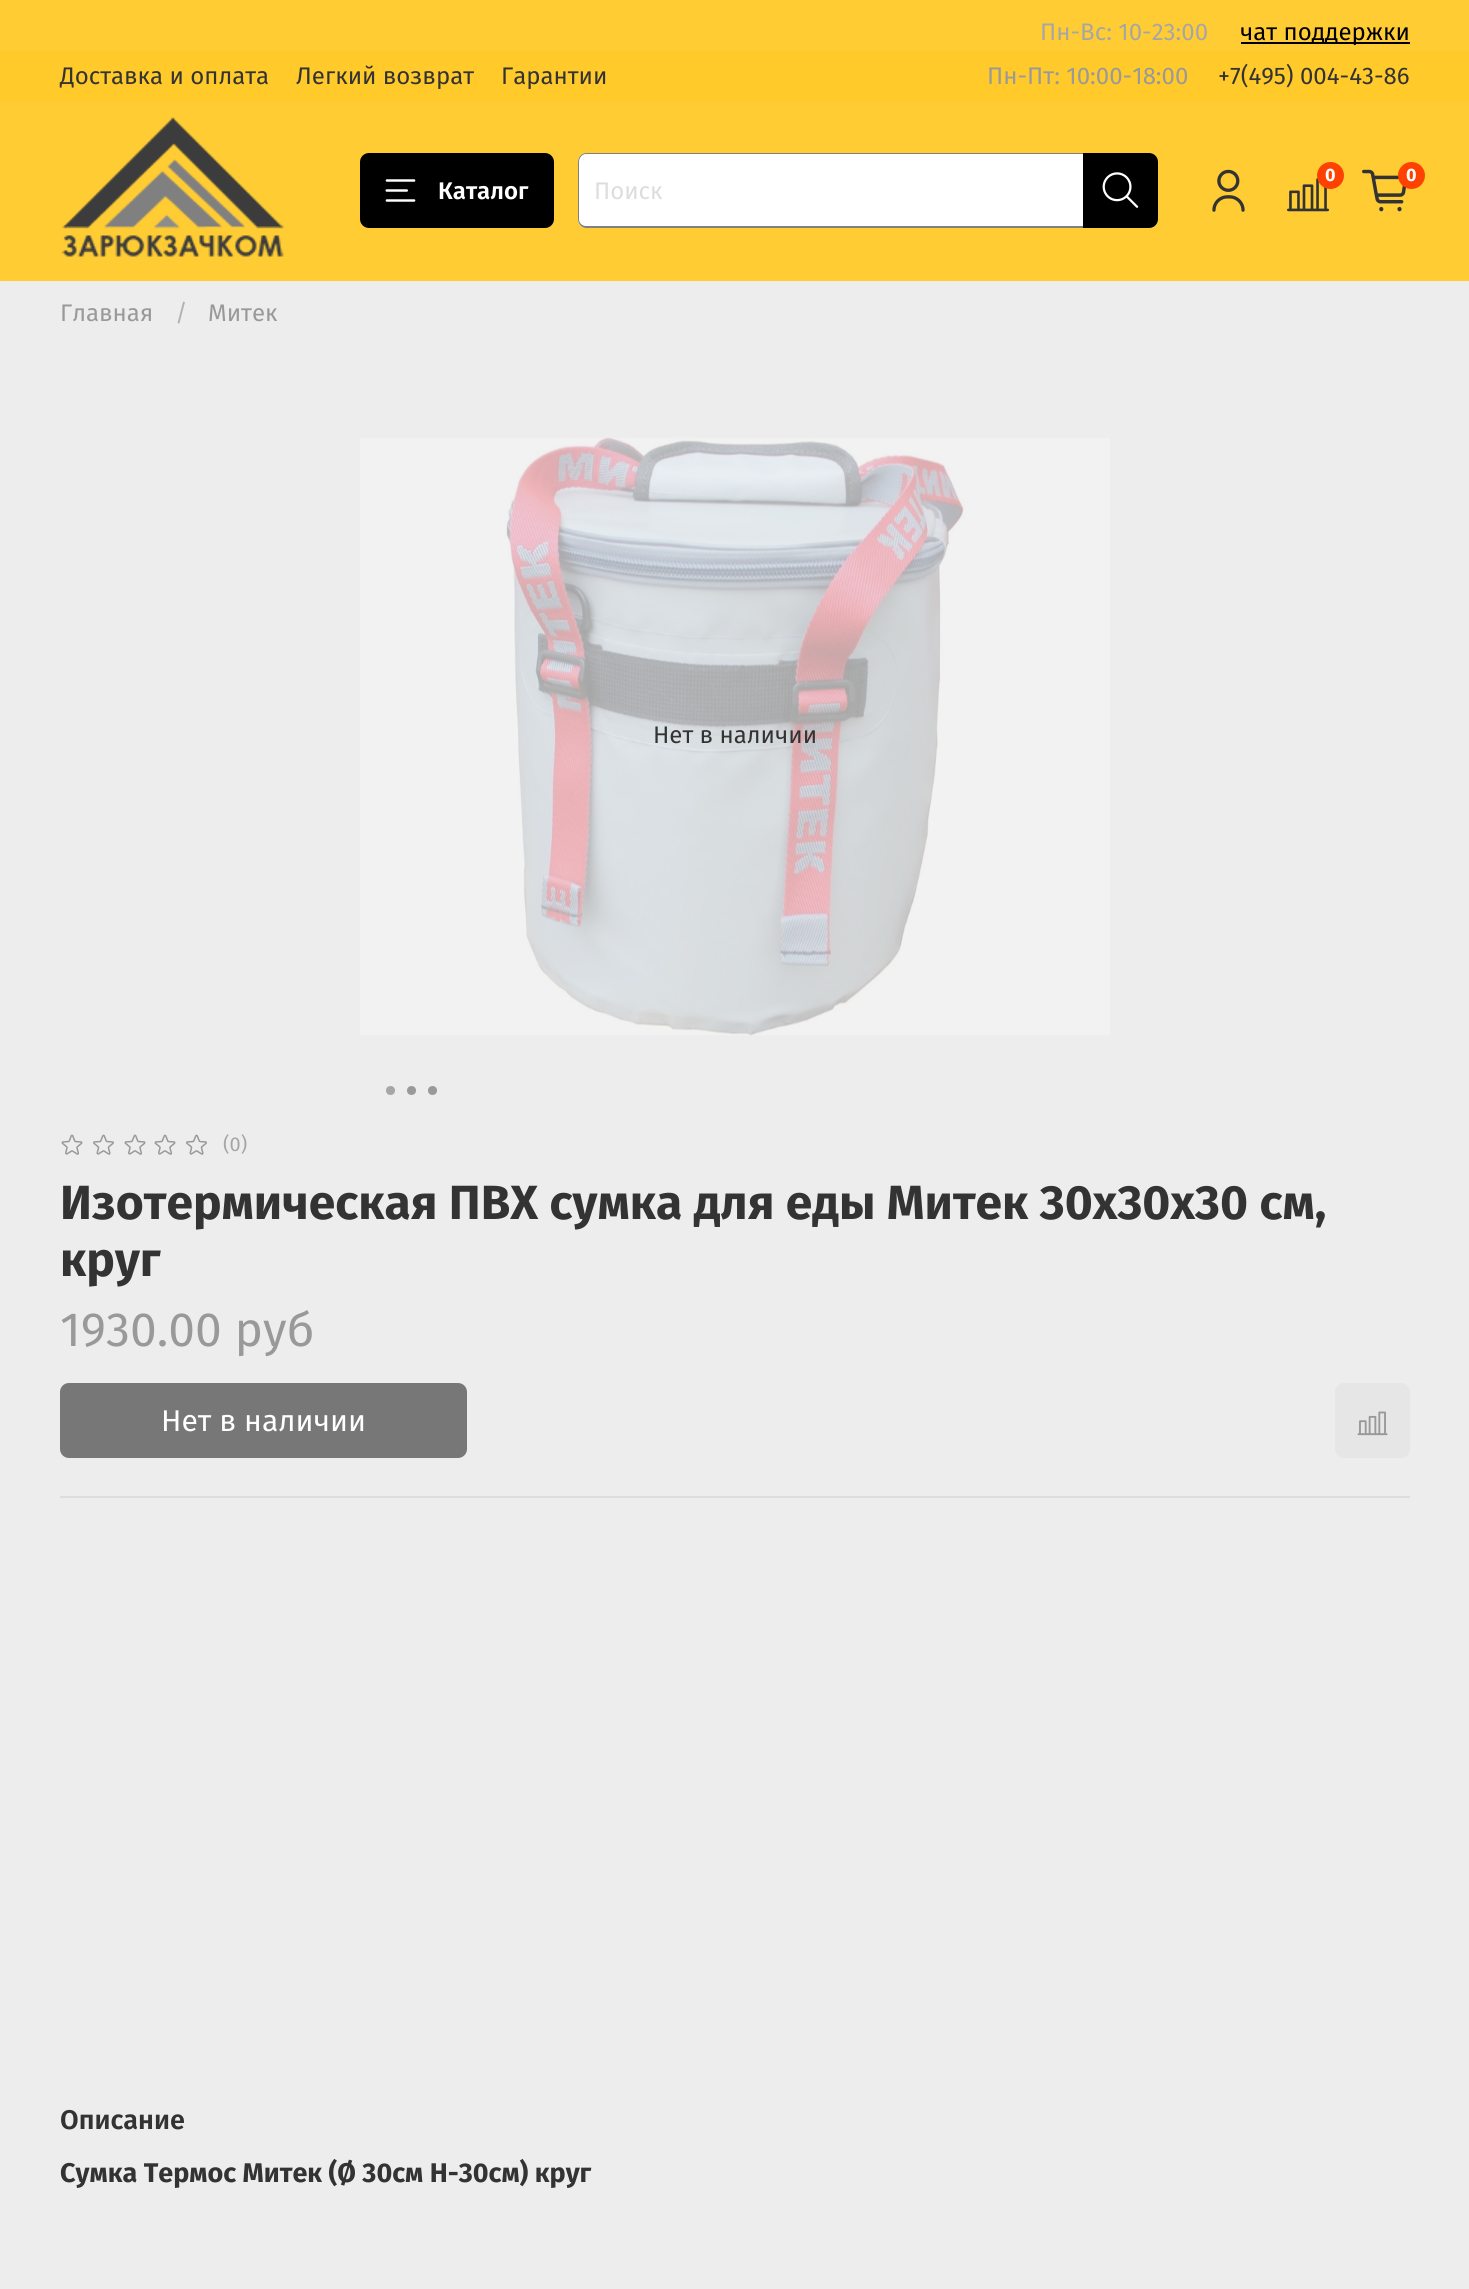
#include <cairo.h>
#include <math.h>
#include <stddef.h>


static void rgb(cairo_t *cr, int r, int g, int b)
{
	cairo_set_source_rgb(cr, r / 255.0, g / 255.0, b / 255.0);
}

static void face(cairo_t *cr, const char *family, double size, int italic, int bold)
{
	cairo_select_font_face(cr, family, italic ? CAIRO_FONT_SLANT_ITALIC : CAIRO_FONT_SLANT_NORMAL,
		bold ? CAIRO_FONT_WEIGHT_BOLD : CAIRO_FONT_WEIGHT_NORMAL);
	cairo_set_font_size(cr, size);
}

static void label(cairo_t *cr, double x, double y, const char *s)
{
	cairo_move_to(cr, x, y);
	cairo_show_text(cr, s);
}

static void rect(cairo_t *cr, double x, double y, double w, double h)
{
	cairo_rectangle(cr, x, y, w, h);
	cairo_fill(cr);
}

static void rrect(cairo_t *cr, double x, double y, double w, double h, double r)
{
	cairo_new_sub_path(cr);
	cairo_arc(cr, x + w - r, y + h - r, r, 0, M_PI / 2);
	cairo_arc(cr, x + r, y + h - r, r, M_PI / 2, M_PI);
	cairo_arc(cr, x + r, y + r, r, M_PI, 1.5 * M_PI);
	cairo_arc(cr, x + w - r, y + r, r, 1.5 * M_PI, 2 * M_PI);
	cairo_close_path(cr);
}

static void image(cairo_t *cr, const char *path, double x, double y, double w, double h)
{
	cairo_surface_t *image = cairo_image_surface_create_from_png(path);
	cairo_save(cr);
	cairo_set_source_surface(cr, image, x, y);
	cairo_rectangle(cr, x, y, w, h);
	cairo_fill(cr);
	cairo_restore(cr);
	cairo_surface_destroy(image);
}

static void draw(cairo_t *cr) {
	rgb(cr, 255, 204, 52);
	cairo_paint(cr);
	face(cr, "Fira Sans", 24, 0, 0);
	rgb(cr, 166, 166, 166);
	label(cr, 1040, 40, "Пн-Вс: 10-23:00");
	rgb(cr, 0, 0, 0);
	rect(cr, 1241, 42, 169, 2);
	label(cr, 1240, 40, "чат поддержки");
	rgb(cr, 255, 202, 42);
	rect(cr, 0, 51, 1469, 51);
	rgb(cr, 51, 51, 51);
	label(cr, 60, 84, "Доставка и оплата");
	label(cr, 296, 84, "Легкий возврат");
	label(cr, 501, 84, "Гарантии");
	rgb(cr, 153, 153, 153);
	label(cr, 987, 84, "Пн-Пт: 10:00-18:00");
	rgb(cr, 51, 51, 51);
	label(cr, 1218, 84, "+7(495) 004-43-86");
	image(cr, "image0.png", 61, 117, 223, 140);
	image(cr, "image1.png", 1212, 169, 33, 43);
	image(cr, "image2.png", 1287, 178, 42, 34);
	rgb(cr, 255, 65, 0);
	cairo_arc(cr, 1330.5, 175.5, 13.5, 0, 2 * M_PI);
	cairo_fill(cr);
	face(cr, "Fira Sans", 18, 0, 1);
	rgb(cr, 255, 255, 255);
	label(cr, 1325, 181, "0");
	image(cr, "image3.png", 1362, 169, 44, 43);
	rgb(cr, 255, 65, 0);
	cairo_arc(cr, 1411.5, 175.5, 13.5, 0, 2 * M_PI);
	cairo_fill(cr);
	rgb(cr, 255, 255, 255);
	label(cr, 1406, 181, "0");
	rgb(cr, 0, 0, 0);
	rrect(cr, 360, 153, 194, 75, 9);
	cairo_fill(cr);
	image(cr, "image4.png", 385, 179, 31, 23);
	face(cr, "Fira Sans SemiBold", 24, 0, 0);
	rgb(cr, 255, 255, 255);
	label(cr, 438, 199, "Каталог");
	cairo_new_path(cr);
	cairo_move_to(cr, 587, 153);
	cairo_line_to(cr, 1083, 153);
	cairo_line_to(cr, 1083, 228);
	cairo_line_to(cr, 587, 228);
	cairo_curve_to(cr, 582, 228, 578, 224, 578, 219);
	cairo_line_to(cr, 578, 162);
	cairo_curve_to(cr, 578, 157, 582, 153, 587, 153);
	cairo_close_path(cr);
	cairo_fill(cr);
	rgb(cr, 128, 128, 128);
	cairo_set_fill_rule(cr, CAIRO_FILL_RULE_EVEN_ODD);
	cairo_new_path(cr);
	cairo_move_to(cr, 586, 153);
	cairo_line_to(cr, 1083, 153);
	cairo_line_to(cr, 1083, 228);
	cairo_line_to(cr, 586, 228);
	cairo_curve_to(cr, 582, 228, 578, 224, 578, 219);
	cairo_line_to(cr, 578, 162);
	cairo_curve_to(cr, 578, 157, 582, 153, 586, 153);
	cairo_close_path(cr);
	cairo_move_to(cr, 586, 154);
	cairo_line_to(cr, 1083, 154);
	cairo_line_to(cr, 1083, 226);
	cairo_line_to(cr, 586, 226);
	cairo_curve_to(cr, 582, 226, 579, 223, 579, 219);
	cairo_line_to(cr, 579, 162);
	cairo_curve_to(cr, 579, 158, 582, 154, 586, 154);
	cairo_close_path(cr);
	cairo_fill(cr);
	face(cr, "Fira Sans", 24, 0, 0);
	rgb(cr, 221, 221, 221);
	label(cr, 594, 199, "Поиск");
	rgb(cr, 0, 0, 0);
	cairo_new_path(cr);
	cairo_move_to(cr, 1083, 153);
	cairo_line_to(cr, 1149, 153);
	cairo_curve_to(cr, 1154, 153, 1158, 157, 1158, 162);
	cairo_line_to(cr, 1158, 219);
	cairo_curve_to(cr, 1158, 224, 1154, 228, 1149, 228);
	cairo_line_to(cr, 1083, 228);
	cairo_close_path(cr);
	cairo_fill(cr);
	image(cr, "image5.png", 1102, 172, 37, 36);
	rgb(cr, 237, 237, 237);
	rect(cr, 0, 281, 1469, 2008);
	rgb(cr, 153, 153, 153);
	label(cr, 60, 321, "Главная");
	rgb(cr, 178, 178, 178);
	label(cr, 175, 321, "/");
	rgb(cr, 153, 153, 153);
	label(cr, 208, 321, "Митек");
	image(cr, "image6.png", 360, 437, 750, 599);
	rgb(cr, 166, 166, 166);
	cairo_arc(cr, 390.5, 1090.5, 4.5, 0, 2 * M_PI);
	cairo_fill(cr);
	rgb(cr, 153, 153, 153);
	cairo_arc(cr, 411.5, 1090.5, 4.5, 0, 2 * M_PI);
	cairo_fill(cr);
	cairo_arc(cr, 432.5, 1090.5, 4.5, 0, 2 * M_PI);
	cairo_fill(cr);
	rgb(cr, 51, 51, 51);
	label(cr, 653, 743, "Нет в наличии");
	image(cr, "image7.png", 61, 1134, 22, 21);
	image(cr, "image8.png", 93, 1134, 21, 21);
	image(cr, "image7.png", 124, 1134, 22, 21);
	image(cr, "image7.png", 154, 1134, 22, 21);
	image(cr, "image8.png", 186, 1134, 21, 21);
	face(cr, "Fira Sans", 20, 0, 0);
	rgb(cr, 166, 166, 166);
	label(cr, 223, 1151, "(0)");
	face(cr, "Fira Sans", 48, 0, 1);
	rgb(cr, 51, 51, 51);
	label(cr, 60, 1219, "Изотермическая ПВХ сумка для еды Митек 30х30х30 см,");
	label(cr, 60, 1276, "круг");
	face(cr, "Fira Sans", 48, 0, 0);
	rgb(cr, 153, 153, 153);
	label(cr, 60, 1346, "1930.00 руб");
	rgb(cr, 119, 119, 119);
	rrect(cr, 61, 1384, 405, 73, 8);
	cairo_fill_preserve(cr);
	cairo_stroke(cr);
	face(cr, "Fira Sans", 30, 0, 0);
	rgb(cr, 255, 255, 255);
	label(cr, 161, 1431, "Нет в наличии");
	rgb(cr, 230, 230, 230);
	rrect(cr, 1335, 1383, 75, 75, 9);
	cairo_fill(cr);
	image(cr, "image9.png", 1357, 1411, 31, 25);
	rgb(cr, 221, 221, 221);
	rect(cr, 60, 1496, 1350, 2);
	face(cr, "Fira Sans SemiBold", 27, 0, 0);
	rgb(cr, 51, 51, 51);
	label(cr, 60, 2129, "Описание");
	face(cr, "Fira Sans", 27, 0, 1);
	label(cr, 60, 2182, "Сумка Термос Митек (Ø 30см Н-30см) круг");
}

int main(void) {
	cairo_surface_t *surface = cairo_image_surface_create(CAIRO_FORMAT_RGB24, 1469, 2289);
	cairo_t *cr = cairo_create(surface);
	cairo_font_options_t *options = cairo_font_options_create();
	cairo_font_options_set_hint_metrics(options, CAIRO_HINT_METRICS_OFF);
	cairo_font_options_set_hint_style(options, CAIRO_HINT_STYLE_NONE);
	cairo_set_font_options(cr, options);
	cairo_set_miter_limit(cr, 4);
	draw(cr);
	cairo_surface_write_to_png(surface, "render.png");
	cairo_font_options_destroy(options);
	cairo_destroy(cr);
	cairo_surface_destroy(surface);
	return 0;
}
